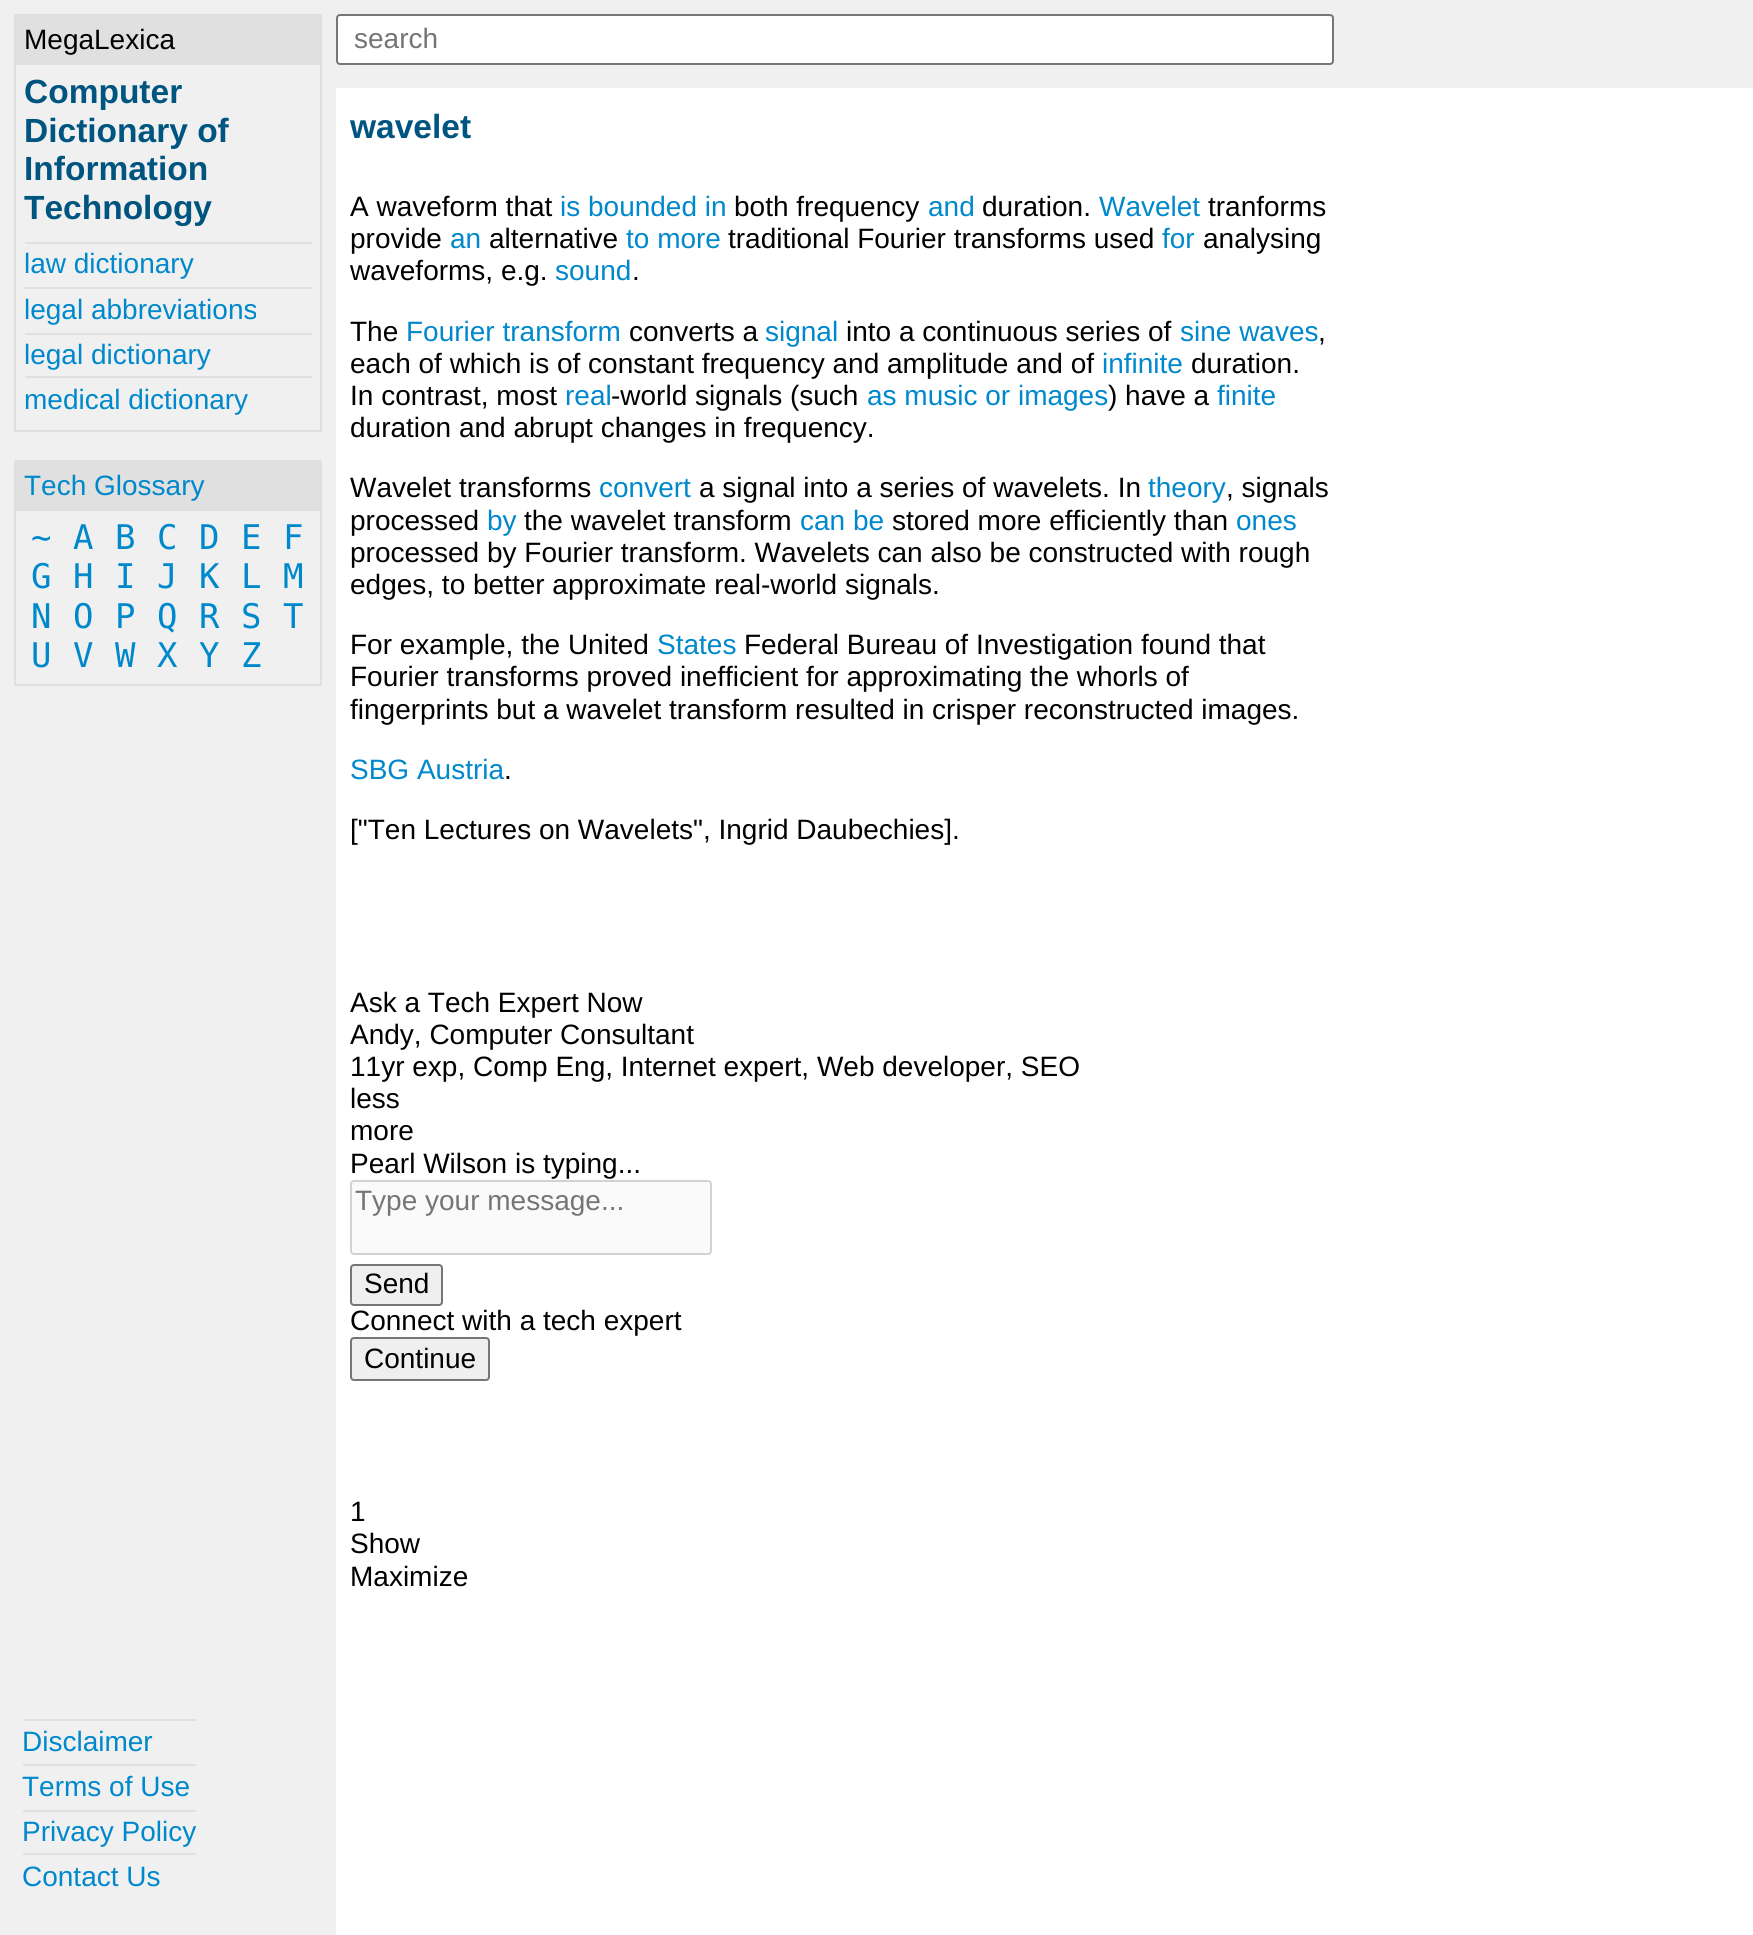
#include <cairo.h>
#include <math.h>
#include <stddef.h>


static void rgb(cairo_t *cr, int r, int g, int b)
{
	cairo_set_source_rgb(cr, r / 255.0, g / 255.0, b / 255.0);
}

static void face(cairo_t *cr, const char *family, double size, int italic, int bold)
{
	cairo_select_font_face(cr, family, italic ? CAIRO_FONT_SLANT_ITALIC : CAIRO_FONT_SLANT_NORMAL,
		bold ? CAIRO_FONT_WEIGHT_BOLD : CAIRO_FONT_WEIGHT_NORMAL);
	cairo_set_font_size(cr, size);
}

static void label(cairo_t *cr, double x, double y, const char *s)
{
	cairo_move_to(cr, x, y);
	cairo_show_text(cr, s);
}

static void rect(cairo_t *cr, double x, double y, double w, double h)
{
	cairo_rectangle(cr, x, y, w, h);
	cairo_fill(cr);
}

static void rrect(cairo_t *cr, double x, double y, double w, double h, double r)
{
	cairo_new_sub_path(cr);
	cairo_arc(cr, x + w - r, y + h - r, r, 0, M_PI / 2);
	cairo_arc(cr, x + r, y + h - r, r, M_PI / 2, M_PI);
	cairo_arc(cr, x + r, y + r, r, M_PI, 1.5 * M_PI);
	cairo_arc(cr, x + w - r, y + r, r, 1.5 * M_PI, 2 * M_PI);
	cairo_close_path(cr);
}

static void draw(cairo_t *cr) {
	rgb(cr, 255, 255, 255);
	cairo_paint(cr);
	rgb(cr, 240, 240, 240);
	rect(cr, 0, 0, 336, 1935);
	cairo_rectangle(cr, 15, 15, 306, 416);
	rgb(cr, 224, 224, 224);
	cairo_stroke(cr);
	rect(cr, 16, 16, 304, 49);
	face(cr, "Liberation Sans", 28, 0, 0);
	rgb(cr, 0, 0, 0);
	label(cr, 24, 49, "MegaLexica");
	face(cr, "Liberation Sans", 33.5, 0, 1);
	rgb(cr, 0, 85, 128);
	label(cr, 24, 103, "Computer");
	label(cr, 24, 142, "Dictionary of");
	label(cr, 24, 180, "Information");
	label(cr, 24, 219, "Technology");
	rgb(cr, 224, 224, 224);
	rect(cr, 25, 242, 287, 2);
	face(cr, "Liberation Sans", 28, 0, 0);
	rgb(cr, 0, 136, 204);
	label(cr, 24, 273, "law dictionary");
	rgb(cr, 224, 224, 224);
	rect(cr, 25, 287, 287, 2);
	rgb(cr, 0, 136, 204);
	label(cr, 24, 319, "legal abbreviations");
	rgb(cr, 224, 224, 224);
	rect(cr, 25, 333, 287, 2);
	rgb(cr, 0, 136, 204);
	label(cr, 24, 364, "legal dictionary");
	rgb(cr, 224, 224, 224);
	rect(cr, 25, 376, 287, 2);
	rgb(cr, 0, 136, 204);
	label(cr, 24, 409, "medical dictionary");
	cairo_rectangle(cr, 15, 461, 306, 224);
	rgb(cr, 224, 224, 224);
	cairo_stroke(cr);
	rect(cr, 16, 462, 304, 49);
	rgb(cr, 0, 136, 204);
	label(cr, 24, 495, "Tech Glossary");
	face(cr, "DejaVu Sans Mono", 34, 0, 0);
	label(cr, 31, 549, "~");
	label(cr, 73, 549, "A");
	label(cr, 115, 549, "B");
	label(cr, 157, 549, "C");
	label(cr, 199, 549, "D");
	label(cr, 241, 549, "E");
	label(cr, 283, 549, "F");
	label(cr, 31, 588, "G");
	label(cr, 73, 588, "H");
	label(cr, 115, 588, "I");
	label(cr, 157, 588, "J");
	label(cr, 199, 588, "K");
	label(cr, 241, 588, "L");
	label(cr, 283, 588, "M");
	label(cr, 31, 628, "N");
	label(cr, 73, 628, "O");
	label(cr, 115, 628, "P");
	label(cr, 157, 628, "Q");
	label(cr, 199, 628, "R");
	label(cr, 241, 628, "S");
	label(cr, 283, 628, "T");
	label(cr, 31, 667, "U");
	label(cr, 73, 667, "V");
	label(cr, 115, 667, "W");
	label(cr, 157, 667, "X");
	label(cr, 199, 667, "Y");
	label(cr, 241, 667, "Z");
	rgb(cr, 224, 224, 224);
	rect(cr, 23, 1719, 173, 2);
	face(cr, "Liberation Sans", 28, 0, 0);
	rgb(cr, 0, 136, 204);
	label(cr, 22, 1751, "Disclaimer");
	rgb(cr, 224, 224, 224);
	rect(cr, 23, 1764, 173, 2);
	rgb(cr, 0, 136, 204);
	label(cr, 22, 1796, "Terms of Use");
	rgb(cr, 224, 224, 224);
	rect(cr, 23, 1810, 173, 2);
	rgb(cr, 0, 136, 204);
	label(cr, 22, 1841, "Privacy Policy");
	rgb(cr, 224, 224, 224);
	rect(cr, 23, 1853, 173, 2);
	rgb(cr, 0, 136, 204);
	label(cr, 22, 1886, "Contact Us");
	rgb(cr, 240, 240, 240);
	rect(cr, 336, 0, 1417, 88);
	rgb(cr, 255, 255, 255);
	rrect(cr, 337, 15, 996, 49, 3);
	cairo_fill_preserve(cr);
	rgb(cr, 118, 118, 118);
	cairo_stroke(cr);
	rgb(cr, 117, 117, 117);
	label(cr, 354, 48, "search");
	face(cr, "Liberation Sans", 33.5, 0, 1);
	rgb(cr, 0, 85, 128);
	label(cr, 350, 138, "wavelet");
	face(cr, "Liberation Sans", 28, 0, 0);
	rgb(cr, 0, 0, 0);
	label(cr, 350, 216, "A waveform that");
	rgb(cr, 0, 136, 204);
	label(cr, 560, 216, "is bounded in");
	rgb(cr, 0, 0, 0);
	label(cr, 734, 216, "both frequency");
	rgb(cr, 0, 136, 204);
	label(cr, 928, 216, "and");
	rgb(cr, 0, 0, 0);
	label(cr, 982, 216, "duration.");
	rgb(cr, 0, 136, 204);
	label(cr, 1099, 216, "Wavelet");
	rgb(cr, 0, 0, 0);
	label(cr, 1208, 216, "tranforms");
	label(cr, 350, 248, "provide");
	rgb(cr, 0, 136, 204);
	label(cr, 450, 248, "an");
	rgb(cr, 0, 0, 0);
	label(cr, 489, 248, "alternative");
	rgb(cr, 0, 136, 204);
	label(cr, 626, 248, "to more");
	rgb(cr, 0, 0, 0);
	label(cr, 728, 248, "traditional Fourier transforms used");
	rgb(cr, 0, 136, 204);
	label(cr, 1162, 248, "for");
	rgb(cr, 0, 0, 0);
	label(cr, 1203, 248, "analysing");
	label(cr, 350, 280, "waveforms, e.g.");
	rgb(cr, 0, 136, 204);
	label(cr, 555, 280, "sound");
	rgb(cr, 0, 0, 0);
	label(cr, 632, 280, ".");
	label(cr, 350, 341, "The");
	rgb(cr, 0, 136, 204);
	label(cr, 406, 341, "Fourier transform");
	rgb(cr, 0, 0, 0);
	label(cr, 629, 341, "converts a");
	rgb(cr, 0, 136, 204);
	label(cr, 765, 341, "signal");
	rgb(cr, 0, 0, 0);
	label(cr, 846, 341, "into a continuous series of");
	rgb(cr, 0, 136, 204);
	label(cr, 1180, 341, "sine waves");
	rgb(cr, 0, 0, 0);
	label(cr, 1318, 341, ",");
	label(cr, 350, 373, "each of which is of constant frequency and amplitude and of");
	rgb(cr, 0, 136, 204);
	label(cr, 1102, 373, "infinite");
	rgb(cr, 0, 0, 0);
	label(cr, 1191, 373, "duration.");
	label(cr, 350, 405, "In contrast, most");
	rgb(cr, 0, 136, 204);
	label(cr, 565, 405, "real");
	rgb(cr, 0, 0, 0);
	label(cr, 611, 405, "-world signals (such");
	rgb(cr, 0, 136, 204);
	label(cr, 867, 405, "as music or images");
	rgb(cr, 0, 0, 0);
	label(cr, 1108, 405, ") have a");
	rgb(cr, 0, 136, 204);
	label(cr, 1217, 405, "finite");
	rgb(cr, 0, 0, 0);
	label(cr, 350, 437, "duration and abrupt changes in frequency.");
	label(cr, 350, 497, "Wavelet transforms");
	rgb(cr, 0, 136, 204);
	label(cr, 599, 497, "convert");
	rgb(cr, 0, 0, 0);
	label(cr, 699, 497, "a signal into a series of wavelets. In");
	rgb(cr, 0, 136, 204);
	label(cr, 1148, 497, "theory");
	rgb(cr, 0, 0, 0);
	label(cr, 1226, 497, ", signals");
	label(cr, 350, 530, "processed");
	rgb(cr, 0, 136, 204);
	label(cr, 487, 530, "by");
	rgb(cr, 0, 0, 0);
	label(cr, 524, 530, "the wavelet transform");
	rgb(cr, 0, 136, 204);
	label(cr, 800, 530, "can be");
	rgb(cr, 0, 0, 0);
	label(cr, 892, 530, "stored more efficiently than");
	rgb(cr, 0, 136, 204);
	label(cr, 1236, 530, "ones");
	rgb(cr, 0, 0, 0);
	label(cr, 350, 562, "processed by Fourier transform. Wavelets can also be constructed with rough");
	label(cr, 350, 594, "edges, to better approximate real-world signals.");
	label(cr, 350, 654, "For example, the United");
	rgb(cr, 0, 136, 204);
	label(cr, 657, 654, "States");
	rgb(cr, 0, 0, 0);
	label(cr, 744, 654, "Federal Bureau of Investigation found that");
	label(cr, 350, 686, "Fourier transforms proved inefficient for approximating the whorls of");
	label(cr, 350, 719, "fingerprints but a wavelet transform resulted in crisper reconstructed images.");
	rgb(cr, 0, 136, 204);
	label(cr, 350, 779, "SBG Austria");
	rgb(cr, 0, 0, 0);
	label(cr, 504, 779, ".");
	label(cr, 350, 839, "[\"Ten Lectures on Wavelets\", Ingrid Daubechies].");
	label(cr, 350, 1012, "Ask a Tech Expert Now");
	label(cr, 350, 1044, "Andy, Computer Consultant");
	label(cr, 350, 1076, "11yr exp, Comp Eng, Internet expert, Web developer, SEO");
	label(cr, 350, 1108, "less");
	label(cr, 350, 1140, "more");
	label(cr, 350, 1173, "Pearl Wilson is typing...");
	rgb(cr, 250, 250, 250);
	rrect(cr, 351, 1181, 360, 73, 3);
	cairo_fill_preserve(cr);
	rgb(cr, 210, 210, 210);
	cairo_stroke(cr);
	rgb(cr, 117, 117, 117);
	label(cr, 355, 1210, "Type your message...");
	rgb(cr, 239, 239, 239);
	rrect(cr, 351, 1265, 91, 40, 3);
	cairo_fill_preserve(cr);
	rgb(cr, 118, 118, 118);
	cairo_stroke(cr);
	rgb(cr, 0, 0, 0);
	label(cr, 364, 1293, "Send");
	label(cr, 350, 1330, "Connect with a tech expert");
	rgb(cr, 239, 239, 239);
	rrect(cr, 351, 1338, 138, 42, 3);
	cairo_fill_preserve(cr);
	rgb(cr, 118, 118, 118);
	cairo_stroke(cr);
	rgb(cr, 0, 0, 0);
	label(cr, 364, 1368, "Continue");
	label(cr, 350, 1521, "1");
	label(cr, 350, 1553, "Show");
	label(cr, 350, 1586, "Maximize");
}

int main(void) {
	cairo_surface_t *surface = cairo_image_surface_create(CAIRO_FORMAT_RGB24, 1753, 1935);
	cairo_t *cr = cairo_create(surface);
	cairo_font_options_t *options = cairo_font_options_create();
	cairo_font_options_set_hint_metrics(options, CAIRO_HINT_METRICS_OFF);
	cairo_font_options_set_hint_style(options, CAIRO_HINT_STYLE_NONE);
	cairo_set_font_options(cr, options);
	cairo_set_miter_limit(cr, 4);
	draw(cr);
	cairo_surface_write_to_png(surface, "render.png");
	cairo_font_options_destroy(options);
	cairo_destroy(cr);
	cairo_surface_destroy(surface);
	return 0;
}
